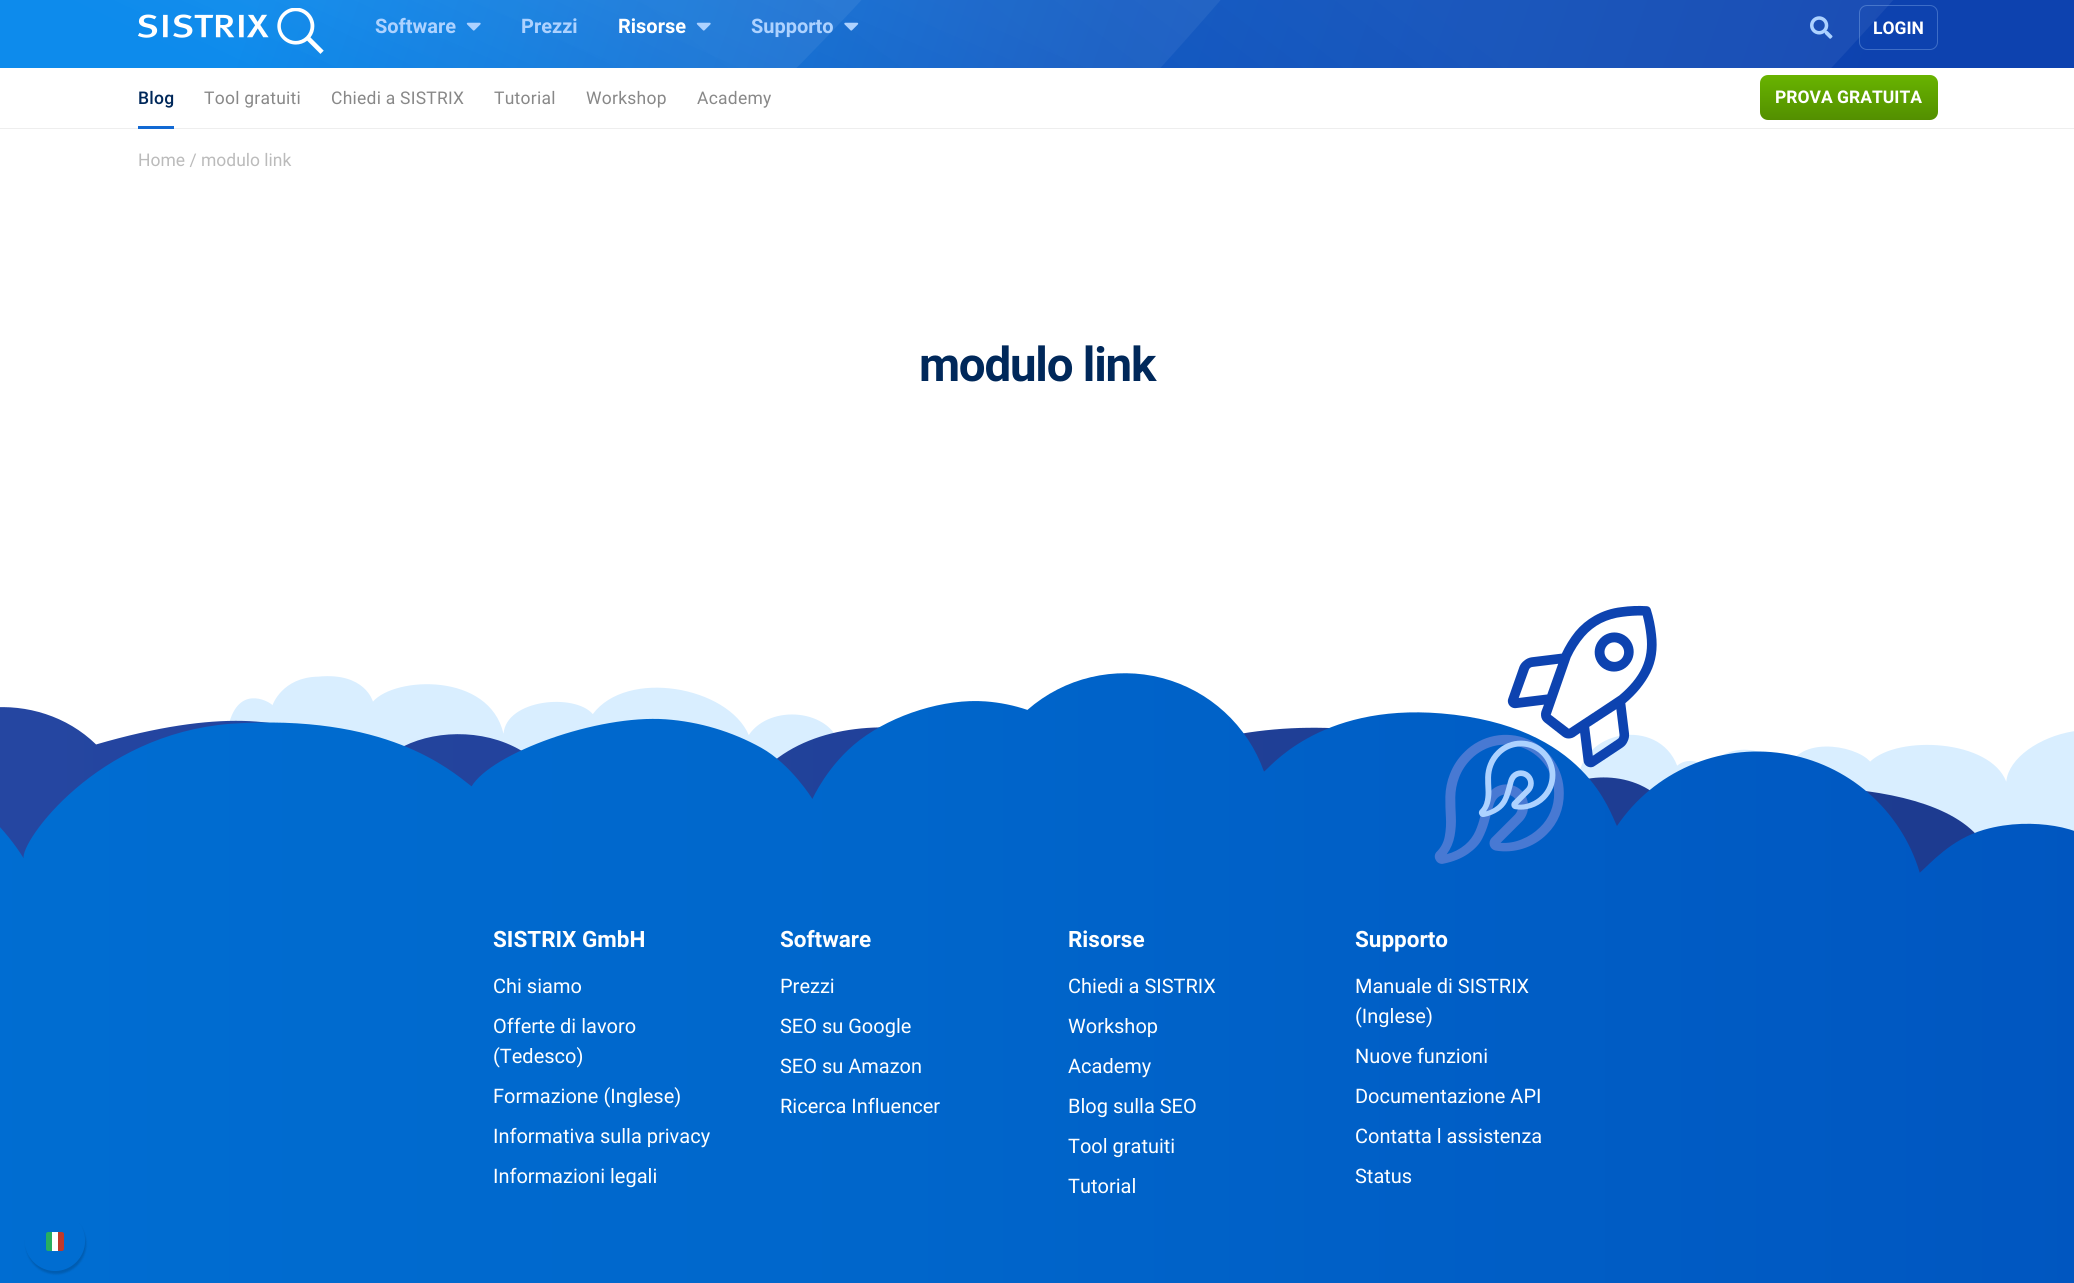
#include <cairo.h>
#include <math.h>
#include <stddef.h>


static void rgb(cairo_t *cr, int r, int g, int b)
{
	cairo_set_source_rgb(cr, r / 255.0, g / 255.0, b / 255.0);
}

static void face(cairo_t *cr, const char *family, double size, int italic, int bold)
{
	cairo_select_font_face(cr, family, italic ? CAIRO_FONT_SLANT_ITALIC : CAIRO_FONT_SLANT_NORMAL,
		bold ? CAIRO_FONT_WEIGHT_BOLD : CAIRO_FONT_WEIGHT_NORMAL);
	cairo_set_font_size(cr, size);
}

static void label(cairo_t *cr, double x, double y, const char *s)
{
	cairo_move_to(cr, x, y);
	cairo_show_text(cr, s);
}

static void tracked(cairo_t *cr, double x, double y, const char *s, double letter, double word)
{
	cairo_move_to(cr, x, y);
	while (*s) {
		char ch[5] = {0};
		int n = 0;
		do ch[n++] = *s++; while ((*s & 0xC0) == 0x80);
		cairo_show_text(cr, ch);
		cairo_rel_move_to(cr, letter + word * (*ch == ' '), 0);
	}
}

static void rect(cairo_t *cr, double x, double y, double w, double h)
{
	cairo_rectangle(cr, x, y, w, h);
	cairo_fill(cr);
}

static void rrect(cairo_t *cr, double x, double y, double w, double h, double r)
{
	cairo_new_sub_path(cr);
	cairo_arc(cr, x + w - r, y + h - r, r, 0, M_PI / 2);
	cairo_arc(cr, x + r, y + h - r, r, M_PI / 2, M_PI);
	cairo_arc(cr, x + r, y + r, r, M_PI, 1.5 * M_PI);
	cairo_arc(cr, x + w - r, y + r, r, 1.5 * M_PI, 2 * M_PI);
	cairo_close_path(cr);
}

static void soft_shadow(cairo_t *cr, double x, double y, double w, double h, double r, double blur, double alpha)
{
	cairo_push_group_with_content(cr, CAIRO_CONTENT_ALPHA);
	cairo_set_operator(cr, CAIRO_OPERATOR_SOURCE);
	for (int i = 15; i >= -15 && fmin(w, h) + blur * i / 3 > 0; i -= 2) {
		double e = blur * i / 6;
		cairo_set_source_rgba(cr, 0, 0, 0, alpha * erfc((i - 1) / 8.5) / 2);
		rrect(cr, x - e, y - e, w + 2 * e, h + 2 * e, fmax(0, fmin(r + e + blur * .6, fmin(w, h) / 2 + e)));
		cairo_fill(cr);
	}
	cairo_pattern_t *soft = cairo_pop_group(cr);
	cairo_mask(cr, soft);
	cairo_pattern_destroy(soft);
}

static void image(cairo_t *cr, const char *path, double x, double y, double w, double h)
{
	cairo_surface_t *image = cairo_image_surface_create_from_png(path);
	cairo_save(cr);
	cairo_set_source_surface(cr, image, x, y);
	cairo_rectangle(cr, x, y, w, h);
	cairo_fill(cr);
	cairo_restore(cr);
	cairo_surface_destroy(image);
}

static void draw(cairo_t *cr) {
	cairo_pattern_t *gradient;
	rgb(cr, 255, 255, 255);
	cairo_paint(cr);
	gradient = cairo_pattern_create_linear(274, -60, 1737, 457);
	cairo_pattern_add_color_stop_rgba(gradient, 0, 0.051, 0.545, 0.925, 1);
	cairo_pattern_add_color_stop_rgba(gradient, 0.53, 0.051, 0.337, 0.753, 1);
	cairo_pattern_add_color_stop_rgba(gradient, 1, 0.051, 0.259, 0.686, 1);
	cairo_set_source(cr, gradient);
	cairo_pattern_destroy(gradient);
	rect(cr, 0, 0, 2074, 68);
	gradient = cairo_pattern_create_linear(850, -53, 714, 265);
	cairo_pattern_add_color_stop_rgba(gradient, 0, 1, 1, 1, 0.06);
	cairo_pattern_add_color_stop_rgba(gradient, 1, 1, 1, 1, 0);
	cairo_set_source(cr, gradient);
	cairo_pattern_destroy(gradient);
	cairo_set_fill_rule(cr, CAIRO_FILL_RULE_EVEN_ODD);
	cairo_new_path(cr);
	cairo_move_to(cr, -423, 934);
	cairo_line_to(cr, -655, -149);
	cairo_line_to(cr, 834, -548);
	cairo_curve_to(cr, 834, -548, 1794, -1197, 1601, -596);
	cairo_curve_to(cr, 1407, 4, 113, 1186, -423, 934);
	cairo_fill(cr);
	gradient = cairo_pattern_create_linear(576, -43, 464, 194);
	cairo_pattern_add_color_stop_rgba(gradient, 0, 1, 1, 1, 0.06);
	cairo_pattern_add_color_stop_rgba(gradient, 1, 1, 1, 1, 0);
	cairo_set_source(cr, gradient);
	cairo_pattern_destroy(gradient);
	cairo_new_path(cr);
	cairo_move_to(cr, -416, 668);
	cairo_line_to(cr, -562, -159);
	cairo_line_to(cr, 577, -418);
	cairo_curve_to(cr, 577, -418, 1323, -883, 1159, -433);
	cairo_curve_to(cr, 996, 16, -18, 874, -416, 668);
	cairo_fill(cr);
	gradient = cairo_pattern_create_linear(1293, -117, 981, 293);
	cairo_pattern_add_color_stop_rgba(gradient, 0, 1, 1, 1, 0.06);
	cairo_pattern_add_color_stop_rgba(gradient, 0.48, 1, 1, 1, 0.02);
	cairo_pattern_add_color_stop_rgba(gradient, 1, 1, 1, 1, 0);
	cairo_set_source(cr, gradient);
	cairo_pattern_destroy(gradient);
	cairo_new_path(cr);
	cairo_move_to(cr, 34, 1030);
	cairo_line_to(cr, -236, -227);
	cairo_line_to(cr, 1492, -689);
	cairo_curve_to(cr, 1492, -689, 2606, -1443, 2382, -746);
	cairo_curve_to(cr, 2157, -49, 655, 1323, 34, 1030);
	cairo_fill(cr);
	image(cr, "image0.png", 138, 8, 186, 46);
	face(cr, "Roboto", 20, 0, 1);
	rgb(cr, 173, 210, 255);
	label(cr, 375, 33, "Software");
	image(cr, "image1.png", 466, 22, 15, 9);
	label(cr, 521, 33, "Prezzi");
	rgb(cr, 255, 255, 255);
	label(cr, 618, 33, "Risorse");
	image(cr, "image2.png", 696, 22, 15, 9);
	rgb(cr, 173, 210, 255);
	label(cr, 751, 33, "Supporto");
	image(cr, "image3.png", 844, 22, 15, 9);
	image(cr, "image4.png", 1810, 16, 23, 23);
	rrect(cr, 1859.5, 5.5, 78, 44, 7.5);
	cairo_set_source_rgba(cr, 0.678, 0.824, 1, 0.3);
	cairo_set_line_width(cr, 1);
	cairo_stroke(cr);
	face(cr, "Roboto", 17.5, 0, 1);
	rgb(cr, 255, 255, 255);
	label(cr, 1873, 34, "LOGIN");
	rgb(cr, 238, 238, 238);
	rect(cr, 0, 128, 2074, 1);
	rgb(cr, 18, 105, 211);
	rect(cr, 138, 126, 36, 3);
	face(cr, "Roboto Medium", 17.5, 0, 0);
	rgb(cr, 0, 40, 90);
	tracked(cr, 138, 104, "Blog", 0.25, 0);
	face(cr, "Roboto", 17.5, 0, 0);
	rgb(cr, 136, 136, 136);
	tracked(cr, 204, 104, "Tool gratuiti", 0.25, 0);
	tracked(cr, 331, 104, "Chiedi a SISTRIX", 0.25, 0);
	tracked(cr, 494, 104, "Tutorial", 0.25, 0);
	tracked(cr, 586, 104, "Workshop", 0.25, 0);
	tracked(cr, 697, 104, "Academy", 0.25, 0);
	gradient = cairo_pattern_create_linear(1849, 75, 1849, 120);
	cairo_pattern_add_color_stop_rgba(gradient, 0.01, 0.408, 0.702, 0, 1);
	cairo_pattern_add_color_stop_rgba(gradient, 1, 0.325, 0.561, 0, 1);
	cairo_set_source(cr, gradient);
	cairo_pattern_destroy(gradient);
	rrect(cr, 1760, 75, 178, 45, 8);
	cairo_fill(cr);
	face(cr, "Roboto", 17.5, 0, 1);
	rgb(cr, 255, 255, 255);
	label(cr, 1775, 103, "PROVA GRATUITA");
	face(cr, "Roboto", 17.5, 0, 0);
	rgb(cr, 187, 187, 187);
	label(cr, 138, 166, "Home / modulo link");
	face(cr, "Roboto", 47.5, 0, 1);
	rgb(cr, 0, 40, 90);
	tracked(cr, 919, 381, "modulo link", -1.25, 0);
	image(cr, "image5.png", 0, 605, 2074, 678);
	face(cr, "Roboto", 22.5, 0, 1);
	rgb(cr, 255, 255, 255);
	label(cr, 493, 947, "SISTRIX GmbH");
	face(cr, "Roboto", 20, 0, 0);
	label(cr, 493, 993, "Chi siamo");
	label(cr, 493, 1033, "Offerte di lavoro");
	label(cr, 493, 1063, "(Tedesco)");
	label(cr, 493, 1103, "Formazione (Inglese)");
	label(cr, 493, 1143, "Informativa sulla privacy");
	label(cr, 493, 1183, "Informazioni legali");
	face(cr, "Roboto", 22.5, 0, 1);
	label(cr, 780, 947, "Software");
	face(cr, "Roboto", 20, 0, 0);
	label(cr, 780, 993, "Prezzi");
	label(cr, 780, 1033, "SEO su Google");
	label(cr, 780, 1073, "SEO su Amazon");
	label(cr, 780, 1113, "Ricerca Influencer");
	face(cr, "Roboto", 22.5, 0, 1);
	label(cr, 1068, 947, "Risorse");
	face(cr, "Roboto", 20, 0, 0);
	label(cr, 1068, 993, "Chiedi a SISTRIX");
	label(cr, 1068, 1033, "Workshop");
	label(cr, 1068, 1073, "Academy");
	label(cr, 1068, 1113, "Blog sulla SEO");
	label(cr, 1068, 1153, "Tool gratuiti");
	label(cr, 1068, 1193, "Tutorial");
	face(cr, "Roboto", 22.5, 0, 1);
	label(cr, 1355, 947, "Supporto");
	face(cr, "Roboto", 20, 0, 0);
	label(cr, 1355, 993, "Manuale di SISTRIX");
	label(cr, 1355, 1023, "(Inglese)");
	label(cr, 1355, 1063, "Nuove funzioni");
	label(cr, 1355, 1103, "Documentazione API");
	label(cr, 1355, 1143, "Contatta l assistenza");
	label(cr, 1355, 1183, "Status");
	cairo_save(cr);
	cairo_new_path(cr);
	cairo_move_to(cr, 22, 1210);
	cairo_line_to(cr, 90, 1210);
	cairo_line_to(cr, 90, 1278);
	cairo_line_to(cr, 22, 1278);
	cairo_close_path(cr);
	cairo_move_to(cr, 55, 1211);
	cairo_curve_to(cr, 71.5, 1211, 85, 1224.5, 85, 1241);
	cairo_curve_to(cr, 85, 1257.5, 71.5, 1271, 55, 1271);
	cairo_curve_to(cr, 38.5, 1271, 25, 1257.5, 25, 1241);
	cairo_curve_to(cr, 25, 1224.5, 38.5, 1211, 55, 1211);
	cairo_close_path(cr);
	cairo_clip(cr);
	rgb(cr, 0, 0, 0);
	soft_shadow(cr, 26, 1214, 60, 60, 30, 1, 0.16);
	cairo_restore(cr);
	rgb(cr, 39, 174, 96);
	cairo_new_path(cr);
	cairo_move_to(cr, 48, 1232);
	cairo_line_to(cr, 52, 1232);
	cairo_line_to(cr, 52, 1251);
	cairo_line_to(cr, 48, 1251);
	cairo_curve_to(cr, 47, 1251, 46, 1250, 46, 1249);
	cairo_line_to(cr, 46, 1234);
	cairo_curve_to(cr, 46, 1233, 47, 1232, 48, 1232);
	cairo_close_path(cr);
	cairo_fill(cr);
	rgb(cr, 255, 255, 255);
	rect(cr, 52, 1232, 6, 19);
	rgb(cr, 192, 57, 43);
	cairo_new_path(cr);
	cairo_move_to(cr, 58, 1232);
	cairo_line_to(cr, 62, 1232);
	cairo_curve_to(cr, 63, 1232, 64, 1233, 64, 1234);
	cairo_line_to(cr, 64, 1249);
	cairo_curve_to(cr, 64, 1250, 63, 1251, 62, 1251);
	cairo_line_to(cr, 58, 1251);
	cairo_close_path(cr);
	cairo_fill(cr);
}

int main(void) {
	cairo_surface_t *surface = cairo_image_surface_create(CAIRO_FORMAT_RGB24, 2074, 1283);
	cairo_t *cr = cairo_create(surface);
	cairo_font_options_t *options = cairo_font_options_create();
	cairo_font_options_set_hint_metrics(options, CAIRO_HINT_METRICS_OFF);
	cairo_font_options_set_hint_style(options, CAIRO_HINT_STYLE_NONE);
	cairo_set_font_options(cr, options);
	cairo_set_miter_limit(cr, 4);
	draw(cr);
	cairo_surface_write_to_png(surface, "render.png");
	cairo_font_options_destroy(options);
	cairo_destroy(cr);
	cairo_surface_destroy(surface);
	return 0;
}
